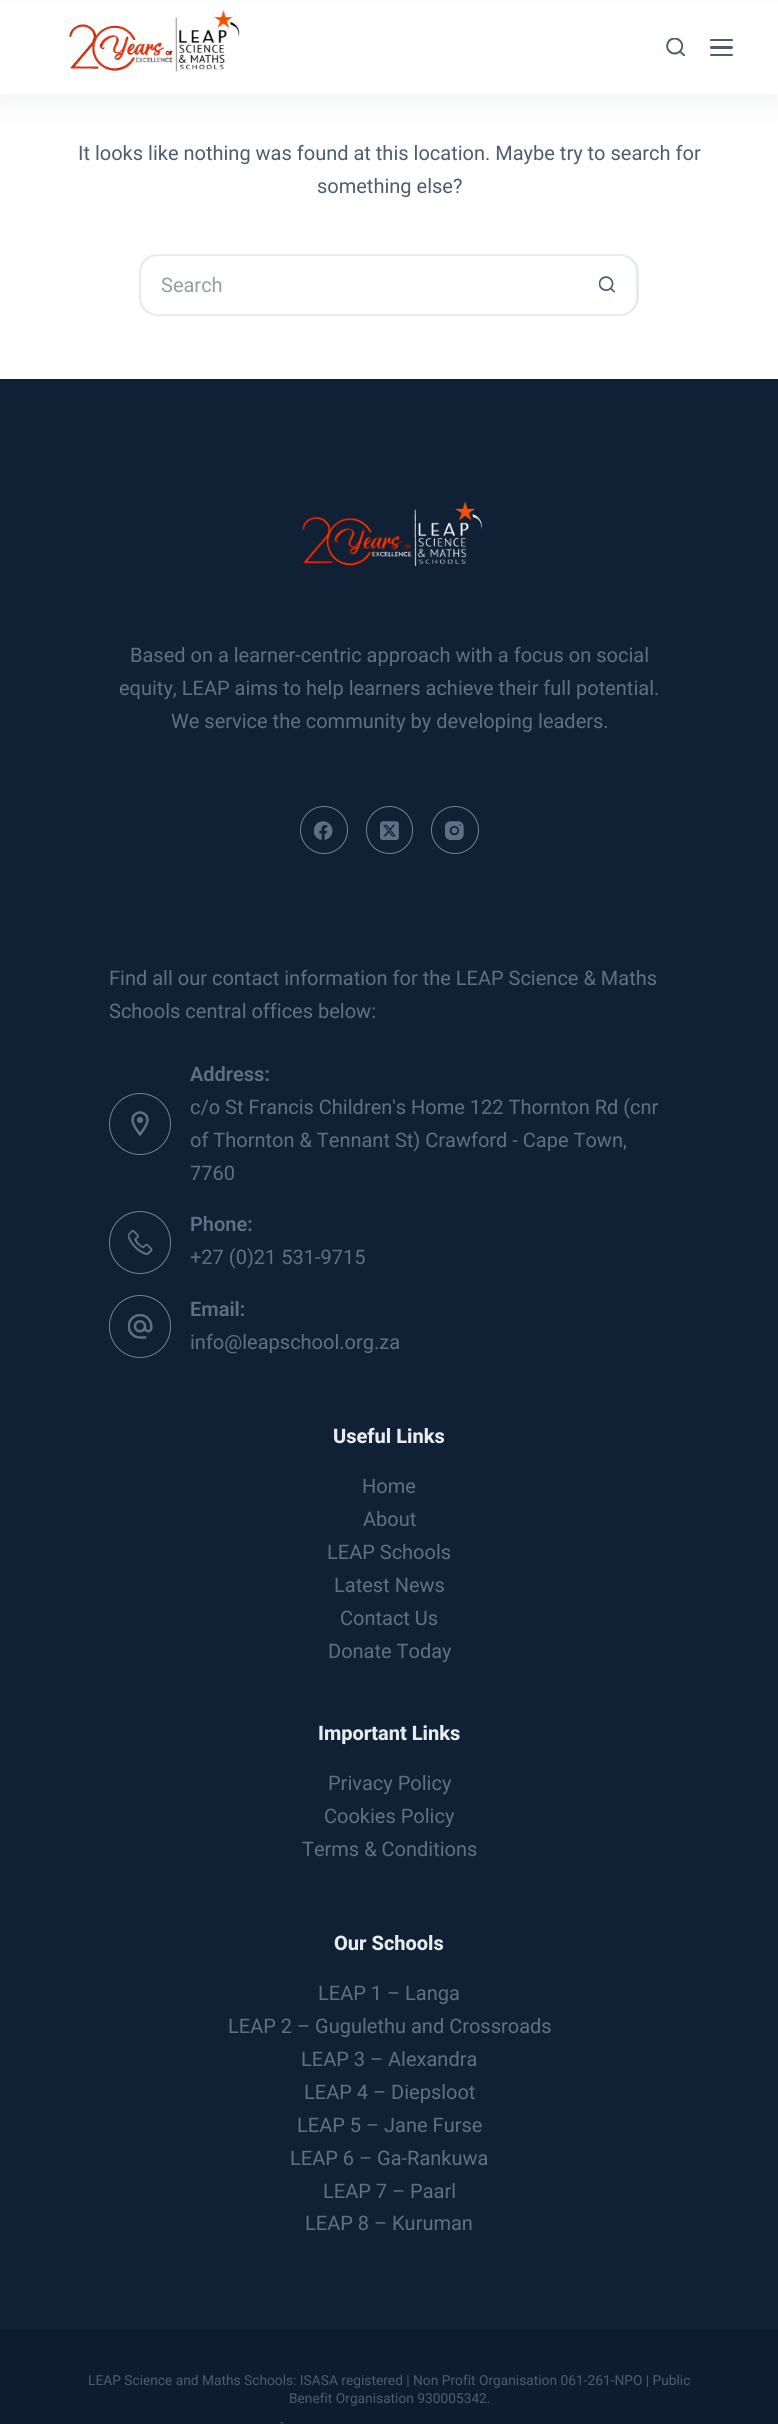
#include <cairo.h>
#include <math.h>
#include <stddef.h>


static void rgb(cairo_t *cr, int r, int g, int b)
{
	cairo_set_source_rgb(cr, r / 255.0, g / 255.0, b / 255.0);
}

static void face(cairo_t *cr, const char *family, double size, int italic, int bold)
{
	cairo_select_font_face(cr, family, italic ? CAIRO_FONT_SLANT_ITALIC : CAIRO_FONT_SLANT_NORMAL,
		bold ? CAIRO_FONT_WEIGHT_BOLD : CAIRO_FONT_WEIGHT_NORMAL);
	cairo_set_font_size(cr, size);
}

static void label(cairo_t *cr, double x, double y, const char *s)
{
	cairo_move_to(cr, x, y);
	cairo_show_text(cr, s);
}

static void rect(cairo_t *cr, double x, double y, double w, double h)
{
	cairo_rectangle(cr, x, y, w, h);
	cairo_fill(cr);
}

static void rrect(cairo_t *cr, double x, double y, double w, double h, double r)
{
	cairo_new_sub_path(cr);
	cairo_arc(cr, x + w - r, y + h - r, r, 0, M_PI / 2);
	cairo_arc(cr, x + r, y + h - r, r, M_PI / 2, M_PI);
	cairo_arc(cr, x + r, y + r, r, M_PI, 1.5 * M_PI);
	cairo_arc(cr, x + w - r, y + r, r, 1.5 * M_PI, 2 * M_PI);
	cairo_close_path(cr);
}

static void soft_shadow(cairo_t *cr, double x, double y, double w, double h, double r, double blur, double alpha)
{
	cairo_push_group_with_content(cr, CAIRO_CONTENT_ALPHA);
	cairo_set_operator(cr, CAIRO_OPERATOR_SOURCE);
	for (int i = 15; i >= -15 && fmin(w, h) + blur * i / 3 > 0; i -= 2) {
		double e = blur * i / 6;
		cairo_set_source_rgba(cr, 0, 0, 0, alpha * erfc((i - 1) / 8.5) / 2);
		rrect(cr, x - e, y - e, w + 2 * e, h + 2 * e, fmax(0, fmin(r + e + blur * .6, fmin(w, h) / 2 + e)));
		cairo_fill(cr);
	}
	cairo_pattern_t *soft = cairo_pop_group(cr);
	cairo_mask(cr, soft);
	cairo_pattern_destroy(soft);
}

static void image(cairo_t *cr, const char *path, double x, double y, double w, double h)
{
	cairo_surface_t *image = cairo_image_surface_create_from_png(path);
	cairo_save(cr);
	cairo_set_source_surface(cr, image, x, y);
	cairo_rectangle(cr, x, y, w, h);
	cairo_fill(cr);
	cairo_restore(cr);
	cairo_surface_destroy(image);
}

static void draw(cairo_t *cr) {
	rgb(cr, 255, 255, 255);
	cairo_paint(cr);
	rgb(cr, 43, 61, 80);
	soft_shadow(cr, 0, 13, 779, 93, 0, 12.5, 0.06);
	rgb(cr, 255, 255, 255);
	rect(cr, 0, 3, 778, 91);
	image(cr, "image0.png", 69, 10, 171, 62);
	image(cr, "image1.png", 666, 38, 19, 18);
	rgb(cr, 77, 93, 109);
	rrect(cr, 710, 39, 23, 2, 1);
	cairo_fill(cr);
	rrect(cr, 710, 46, 23, 3, 1.5);
	cairo_fill(cr);
	rrect(cr, 710, 54, 23, 2, 1);
	cairo_fill(cr);
	face(cr, "Roboto", 20, 0, 0);
	label(cr, 78, 160, "It looks like nothing was found at this location. Maybe try to search for");
	label(cr, 317, 193, "something else?");
	rgb(cr, 231, 235, 238);
	cairo_set_fill_rule(cr, CAIRO_FILL_RULE_EVEN_ODD);
	cairo_new_path(cr);
	cairo_move_to(cr, 158, 254);
	cairo_line_to(cr, 576, 254);
	cairo_line_to(cr, 576, 316);
	cairo_line_to(cr, 158, 316);
	cairo_curve_to(cr, 147, 316, 139, 308, 139, 298);
	cairo_line_to(cr, 139, 272);
	cairo_curve_to(cr, 139, 262, 147, 254, 158, 254);
	cairo_close_path(cr);
	cairo_move_to(cr, 158, 256);
	cairo_line_to(cr, 576, 256);
	cairo_line_to(cr, 576, 314);
	cairo_line_to(cr, 158, 314);
	cairo_curve_to(cr, 149, 314, 141, 306, 141, 298);
	cairo_line_to(cr, 141, 272);
	cairo_curve_to(cr, 141, 264, 149, 256, 158, 256);
	cairo_close_path(cr);
	cairo_fill(cr);
	rgb(cr, 148, 158, 167);
	label(cr, 161, 292, "Search");
	rgb(cr, 231, 235, 238);
	cairo_new_path(cr);
	cairo_move_to(cr, 576, 254);
	cairo_line_to(cr, 620, 254);
	cairo_curve_to(cr, 630, 254, 639, 262, 639, 272);
	cairo_line_to(cr, 639, 298);
	cairo_curve_to(cr, 639, 308, 630, 316, 620, 316);
	cairo_line_to(cr, 576, 316);
	cairo_close_path(cr);
	cairo_move_to(cr, 576, 256);
	cairo_line_to(cr, 620, 256);
	cairo_curve_to(cr, 629, 256, 636, 264, 636, 272);
	cairo_line_to(cr, 636, 298);
	cairo_curve_to(cr, 636, 306, 629, 314, 620, 314);
	cairo_line_to(cr, 576, 314);
	cairo_close_path(cr);
	cairo_fill(cr);
	image(cr, "image2.png", 599, 276, 16, 17);
	rgb(cr, 16, 33, 54);
	rect(cr, 0, 379, 778, 1950);
	image(cr, "image3.png", 302, 501, 180, 66);
	rgb(cr, 94, 112, 134);
	label(cr, 130, 662, "Based on a learner-centric approach with a focus on social");
	label(cr, 119, 695, "equity, LEAP aims to help learners achieve their full potential.");
	label(cr, 171, 728, "We service the community by developing leaders.");
	cairo_new_path(cr);
	cairo_arc(cr, 324, 830, 23.5, 0, 2 * M_PI);
	rgb(cr, 117, 128, 141);
	cairo_set_line_width(cr, 1);
	cairo_stroke(cr);
	image(cr, "image4.png", 314, 821, 19, 19);
	rrect(cr, 366.5, 806.5, 46, 47, 23);
	cairo_stroke(cr);
	image(cr, "image5.png", 380, 821, 19, 19);
	cairo_arc(cr, 455, 830, 23.5, 0, 2 * M_PI);
	cairo_stroke(cr);
	image(cr, "image6.png", 445, 821, 19, 19);
	rgb(cr, 94, 112, 134);
	label(cr, 109, 985, "Find all our contact information for the LEAP Science & Maths");
	label(cr, 109, 1018, "Schools central offices below:");
	cairo_new_path(cr);
	cairo_arc(cr, 140, 1124, 30.5, 0, 2 * M_PI);
	rgb(cr, 117, 128, 141);
	cairo_stroke(cr);
	image(cr, "image7.png", 131, 1111, 18, 25);
	face(cr, "Roboto SemiBold", 20, 0, 0);
	rgb(cr, 94, 112, 134);
	label(cr, 190, 1081, "Address:");
	face(cr, "Roboto", 20, 0, 0);
	label(cr, 190, 1114, "c/o St Francis Children's Home 122 Thornton Rd (cnr");
	label(cr, 190, 1147, "of Thornton & Tennant St) Crawford - Cape Town,");
	label(cr, 190, 1180, "7760");
	rrect(cr, 109.5, 1211.5, 61, 62, 30.5);
	rgb(cr, 117, 128, 141);
	cairo_stroke(cr);
	image(cr, "image8.png", 128, 1230, 25, 25);
	face(cr, "Roboto SemiBold", 20, 0, 0);
	rgb(cr, 94, 112, 134);
	label(cr, 190, 1231, "Phone:");
	face(cr, "Roboto", 20, 0, 0);
	label(cr, 190, 1264, "+27 (0)21 531-9715");
	rrect(cr, 109.5, 1295.5, 61, 62, 30.5);
	rgb(cr, 117, 128, 141);
	cairo_stroke(cr);
	image(cr, "image9.png", 128, 1314, 25, 25);
	face(cr, "Roboto SemiBold", 20, 0, 0);
	rgb(cr, 94, 112, 134);
	label(cr, 190, 1316, "Email:");
	face(cr, "Roboto", 20, 0, 0);
	label(cr, 190, 1349, "info@leapschool.org.za");
	face(cr, "Roboto ExtraBold", 20, 0, 0);
	rgb(cr, 231, 235, 238);
	label(cr, 333, 1443, "Useful Links");
	face(cr, "Roboto", 20, 0, 0);
	rgb(cr, 94, 112, 134);
	label(cr, 362, 1493, "Home");
	label(cr, 363, 1526, "About");
	label(cr, 327, 1559, "LEAP Schools");
	label(cr, 334, 1592, "Latest News");
	label(cr, 340, 1625, "Contact Us");
	label(cr, 328, 1658, "Donate Today");
	face(cr, "Roboto ExtraBold", 20, 0, 0);
	rgb(cr, 231, 235, 238);
	label(cr, 318, 1740, "Important Links");
	face(cr, "Roboto", 20, 0, 0);
	rgb(cr, 94, 112, 134);
	label(cr, 328, 1790, "Privacy Policy");
	label(cr, 324, 1823, "Cookies Policy");
	label(cr, 302, 1856, "Terms & Conditions");
	face(cr, "Roboto ExtraBold", 20, 0, 0);
	rgb(cr, 231, 235, 238);
	label(cr, 334, 1950, "Our Schools");
	face(cr, "Roboto", 20, 0, 0);
	rgb(cr, 94, 112, 134);
	label(cr, 318, 2000, "LEAP 1 – Langa");
	label(cr, 228, 2033, "LEAP 2 – Gugulethu and Crossroads");
	label(cr, 301, 2066, "LEAP 3 – Alexandra");
	label(cr, 304, 2099, "LEAP 4 – Diepsloot");
	label(cr, 297, 2132, "LEAP 5 – Jane Furse");
	label(cr, 290, 2165, "LEAP 6 – Ga-Rankuwa");
	label(cr, 323, 2198, "LEAP 7 – Paarl");
	label(cr, 305, 2230, "LEAP 8 – Kuruman");
	rgb(cr, 13, 28, 47);
	rect(cr, 0, 2329, 778, 95);
	face(cr, "Roboto", 13.75, 0, 0);
	rgb(cr, 77, 93, 109);
	label(cr, 88, 2385, "LEAP Science and Maths Schools: ISASA registered | Non Profit Organisation 061-261-NPO | Public");
	label(cr, 289, 2403, "Benefit Organisation 930005342.");
	label(cr, 280, 2427, "-");
}

int main(void) {
	cairo_surface_t *surface = cairo_image_surface_create(CAIRO_FORMAT_RGB24, 778, 2424);
	cairo_t *cr = cairo_create(surface);
	cairo_font_options_t *options = cairo_font_options_create();
	cairo_font_options_set_hint_metrics(options, CAIRO_HINT_METRICS_OFF);
	cairo_font_options_set_hint_style(options, CAIRO_HINT_STYLE_NONE);
	cairo_set_font_options(cr, options);
	cairo_set_miter_limit(cr, 4);
	draw(cr);
	cairo_surface_write_to_png(surface, "render.png");
	cairo_font_options_destroy(options);
	cairo_destroy(cr);
	cairo_surface_destroy(surface);
	return 0;
}
